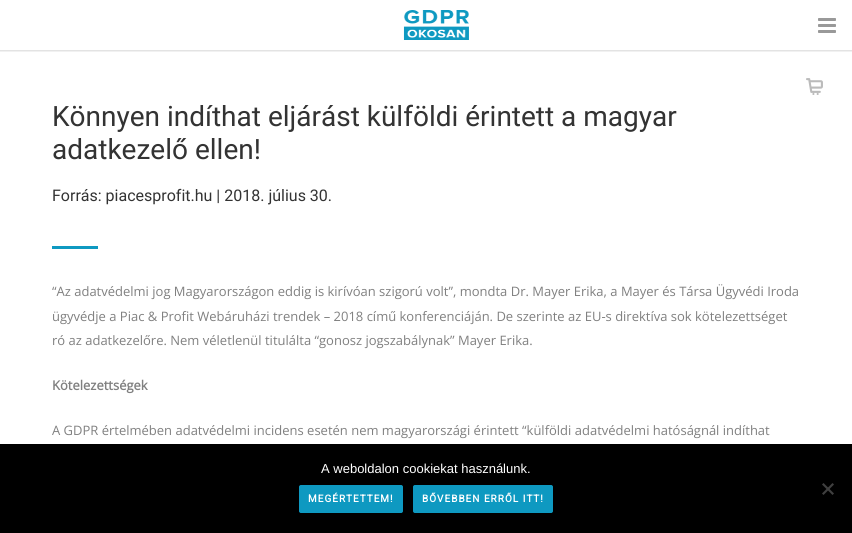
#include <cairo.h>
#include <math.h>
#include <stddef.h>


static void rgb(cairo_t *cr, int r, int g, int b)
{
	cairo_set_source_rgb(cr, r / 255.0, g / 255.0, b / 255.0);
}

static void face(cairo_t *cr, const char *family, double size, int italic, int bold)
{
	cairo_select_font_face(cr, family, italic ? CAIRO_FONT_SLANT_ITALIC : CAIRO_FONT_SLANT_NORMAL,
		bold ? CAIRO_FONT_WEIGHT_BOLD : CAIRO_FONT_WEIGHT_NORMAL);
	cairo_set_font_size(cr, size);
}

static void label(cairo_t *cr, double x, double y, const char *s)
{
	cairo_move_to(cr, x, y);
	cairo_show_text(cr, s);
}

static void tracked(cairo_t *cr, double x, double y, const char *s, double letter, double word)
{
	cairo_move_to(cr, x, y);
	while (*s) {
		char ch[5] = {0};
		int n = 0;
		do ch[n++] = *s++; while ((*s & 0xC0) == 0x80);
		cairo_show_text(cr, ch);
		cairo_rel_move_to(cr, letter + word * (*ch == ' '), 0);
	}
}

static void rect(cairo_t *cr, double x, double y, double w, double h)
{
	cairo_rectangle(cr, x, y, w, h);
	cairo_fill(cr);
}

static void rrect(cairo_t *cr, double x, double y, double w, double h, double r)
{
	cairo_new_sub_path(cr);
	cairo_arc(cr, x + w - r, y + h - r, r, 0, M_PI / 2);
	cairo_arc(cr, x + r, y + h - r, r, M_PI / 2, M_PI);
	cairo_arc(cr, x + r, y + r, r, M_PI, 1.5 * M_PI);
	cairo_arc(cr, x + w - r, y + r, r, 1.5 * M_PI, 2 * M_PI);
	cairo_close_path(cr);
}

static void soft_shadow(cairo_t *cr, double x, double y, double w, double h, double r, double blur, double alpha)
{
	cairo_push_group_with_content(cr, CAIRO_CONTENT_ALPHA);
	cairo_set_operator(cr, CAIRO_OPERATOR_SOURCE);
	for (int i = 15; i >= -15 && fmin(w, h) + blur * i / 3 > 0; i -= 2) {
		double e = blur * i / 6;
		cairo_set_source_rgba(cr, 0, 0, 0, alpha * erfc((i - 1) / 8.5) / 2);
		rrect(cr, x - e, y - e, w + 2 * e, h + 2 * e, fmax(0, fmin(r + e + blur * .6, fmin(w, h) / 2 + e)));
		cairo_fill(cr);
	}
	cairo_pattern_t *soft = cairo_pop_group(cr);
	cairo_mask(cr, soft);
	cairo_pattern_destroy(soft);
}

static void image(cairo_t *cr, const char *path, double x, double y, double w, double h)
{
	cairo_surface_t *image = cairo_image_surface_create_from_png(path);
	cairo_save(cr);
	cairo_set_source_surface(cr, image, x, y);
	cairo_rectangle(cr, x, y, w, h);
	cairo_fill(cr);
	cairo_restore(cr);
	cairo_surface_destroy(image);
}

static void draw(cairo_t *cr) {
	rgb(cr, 255, 255, 255);
	cairo_paint(cr);
	cairo_save(cr);
	cairo_rectangle(cr, 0, 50, 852, 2);
	cairo_clip(cr);
	rgb(cr, 0, 0, 0);
	soft_shadow(cr, -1, -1, 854, 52, 0, 1, 0.16);
	cairo_restore(cr);
	image(cr, "image0.png", 403, 10, 66, 30);
	image(cr, "image1.png", 818, 18, 18, 15);
	image(cr, "image2.png", 806, 78, 17, 17);
	face(cr, "Roboto", 28, 0, 0);
	rgb(cr, 51, 51, 51);
	label(cr, 52, 126, "Könnyen indíthat eljárást külföldi érintett a magyar");
	label(cr, 52, 159, "adatkezelő ellen!");
	face(cr, "Roboto", 16, 0, 0);
	label(cr, 52, 201, "Forrás: piacesprofit.hu | 2018. július 30.");
	rgb(cr, 14, 153, 193);
	rect(cr, 52, 246, 46, 3);
	face(cr, "Open Sans", 13, 0, 0);
	rgb(cr, 128, 128, 128);
	label(cr, 52, 296, "“Az adatvédelmi jog Magyarországon eddig is kirívóan szigorú volt”, mondta Dr. Mayer Erika, a Mayer és Társa Ügyvédi Iroda");
	label(cr, 52, 321, "ügyvédje a Piac & Profit Webáruházi trendek – 2018 című konferenciáján. De szerinte az EU-s direktíva sok kötelezettséget");
	label(cr, 52, 345, "ró az adatkezelőre. Nem véletlenül titulálta “gonosz jogszabálynak” Mayer Erika.");
	face(cr, "Open Sans", 13, 0, 1);
	label(cr, 52, 390, "Kötelezettségek");
	face(cr, "Open Sans", 13, 0, 0);
	label(cr, 52, 435, "A GDPR értelmében adatvédelmi incidens esetén nem magyarországi érintett “külföldi adatvédelmi hatóságnál indíthat");
	rgb(cr, 0, 0, 0);
	rect(cr, 0, 444, 852, 89);
	face(cr, "Liberation Sans", 13, 0, 0);
	rgb(cr, 255, 255, 255);
	label(cr, 321, 473, "A weboldalon cookiekat használunk.");
	rgb(cr, 64, 64, 64);
	cairo_new_path(cr);
	cairo_move_to(cr, 832.5, 483);
	cairo_line_to(cr, 834, 484.5);
	cairo_line_to(cr, 823.5, 495);
	cairo_line_to(cr, 822, 493.5);
	cairo_close_path(cr);
	cairo_fill(cr);
	cairo_new_path(cr);
	cairo_move_to(cr, 822, 484.5);
	cairo_line_to(cr, 823.5, 483);
	cairo_line_to(cr, 834, 493.5);
	cairo_line_to(cr, 832.5, 495);
	cairo_close_path(cr);
	cairo_fill(cr);
	rgb(cr, 14, 153, 193);
	rrect(cr, 299.5, 485.5, 103, 27, 1.5);
	cairo_fill_preserve(cr);
	cairo_set_line_width(cr, 1);
	cairo_stroke(cr);
	face(cr, "Roboto", 10, 0, 1);
	rgb(cr, 255, 255, 255);
	tracked(cr, 308, 502, "MEGÉRTETTEM!", 1, 0);
	rgb(cr, 14, 153, 193);
	rrect(cr, 413.5, 485.5, 139, 27, 1.5);
	cairo_fill_preserve(cr);
	cairo_stroke(cr);
	rgb(cr, 255, 255, 255);
	tracked(cr, 422, 502, "BŐVEBBEN ERRŐL ITT!", 1, 0);
}

int main(void) {
	cairo_surface_t *surface = cairo_image_surface_create(CAIRO_FORMAT_RGB24, 852, 533);
	cairo_t *cr = cairo_create(surface);
	cairo_font_options_t *options = cairo_font_options_create();
	cairo_font_options_set_hint_metrics(options, CAIRO_HINT_METRICS_OFF);
	cairo_font_options_set_hint_style(options, CAIRO_HINT_STYLE_NONE);
	cairo_set_font_options(cr, options);
	cairo_set_miter_limit(cr, 4);
	draw(cr);
	cairo_surface_write_to_png(surface, "render.png");
	cairo_font_options_destroy(options);
	cairo_destroy(cr);
	cairo_surface_destroy(surface);
	return 0;
}
